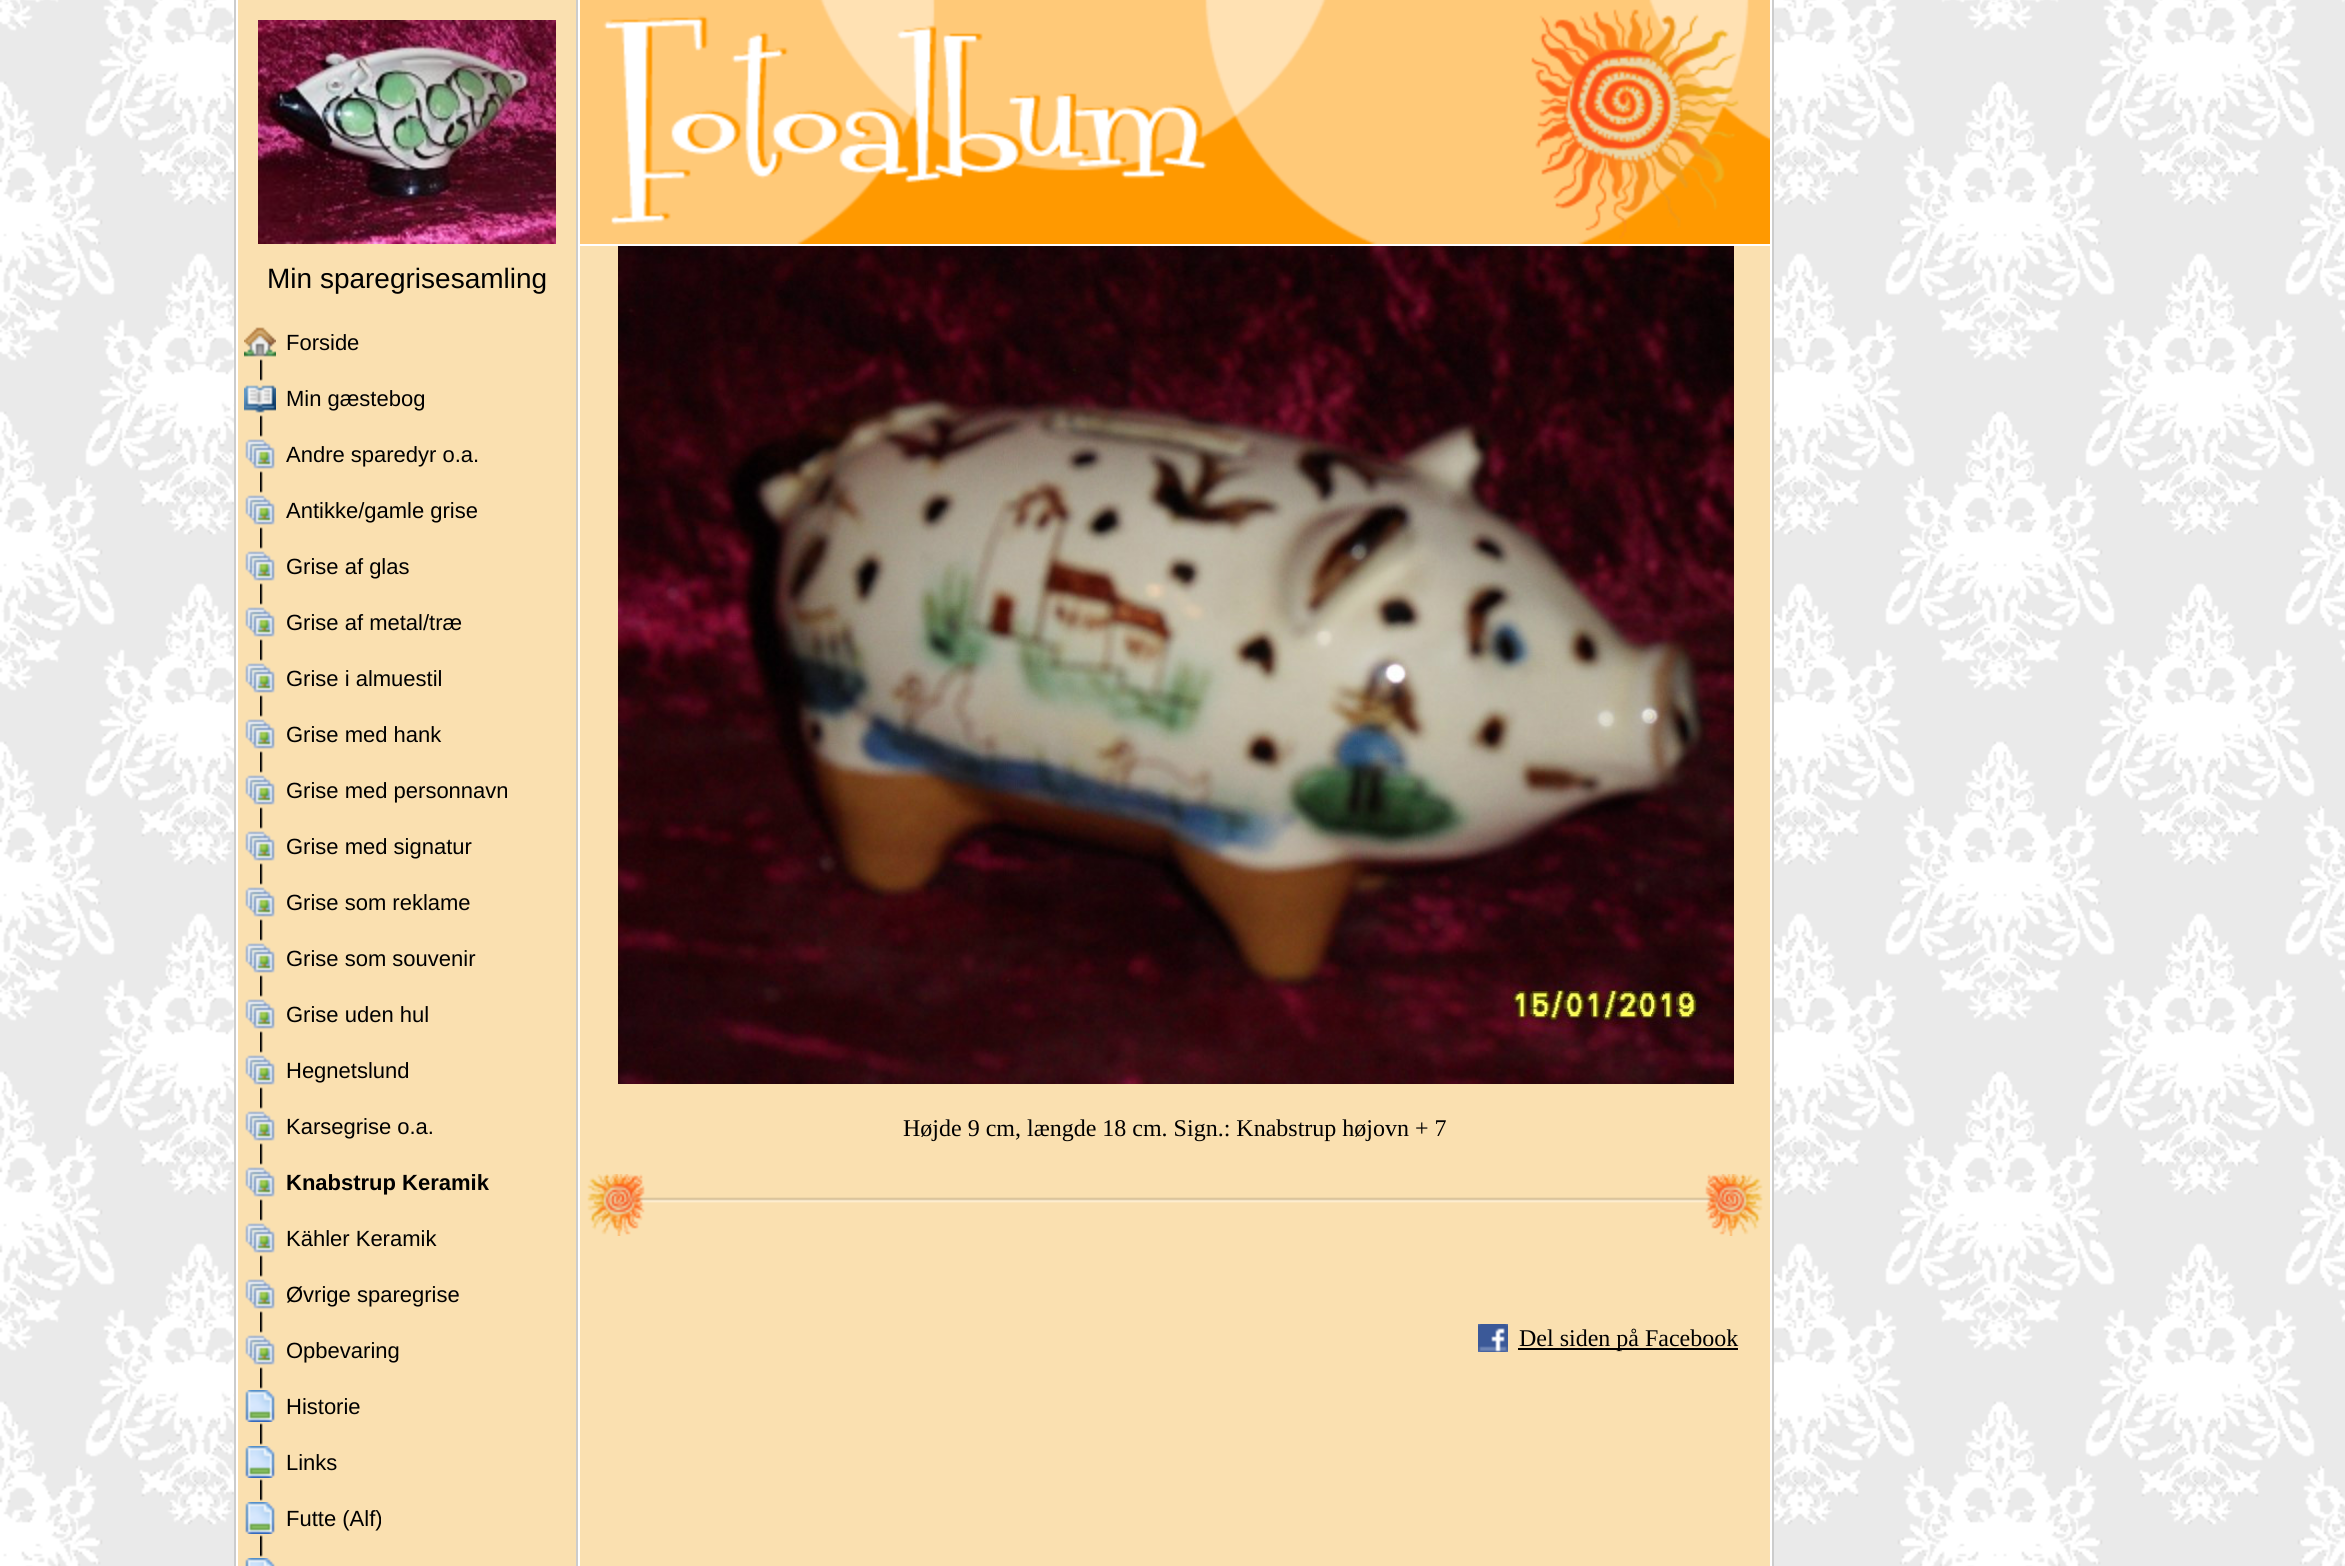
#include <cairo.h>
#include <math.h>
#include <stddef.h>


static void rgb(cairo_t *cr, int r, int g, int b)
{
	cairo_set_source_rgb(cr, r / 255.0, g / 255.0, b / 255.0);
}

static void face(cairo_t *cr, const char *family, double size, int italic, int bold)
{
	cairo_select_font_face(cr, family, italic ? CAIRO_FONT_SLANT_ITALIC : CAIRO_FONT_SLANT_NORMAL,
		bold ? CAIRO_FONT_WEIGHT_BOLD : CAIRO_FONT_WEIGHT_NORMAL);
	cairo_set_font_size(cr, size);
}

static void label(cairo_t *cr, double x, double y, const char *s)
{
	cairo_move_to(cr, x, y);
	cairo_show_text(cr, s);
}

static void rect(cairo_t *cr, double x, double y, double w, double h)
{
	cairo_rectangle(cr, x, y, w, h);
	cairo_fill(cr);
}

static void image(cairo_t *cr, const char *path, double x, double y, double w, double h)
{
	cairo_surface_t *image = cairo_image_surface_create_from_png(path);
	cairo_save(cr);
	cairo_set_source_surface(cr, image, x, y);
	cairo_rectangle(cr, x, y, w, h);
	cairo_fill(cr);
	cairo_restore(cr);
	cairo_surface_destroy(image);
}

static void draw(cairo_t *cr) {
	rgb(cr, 255, 255, 255);
	cairo_paint(cr);
	image(cr, "image0.png", 0, 0, 2345, 1566);
	rgb(cr, 255, 255, 255);
	rect(cr, 236, 0, 1536, 1566);
	rgb(cr, 204, 204, 204);
	rect(cr, 234, 0, 2, 1566);
	rgb(cr, 250, 224, 176);
	rect(cr, 238, 0, 338, 1566);
	image(cr, "image1.png", 258, 20, 298, 224);
	face(cr, "Liberation Sans", 28, 0, 0);
	rgb(cr, 0, 0, 0);
	label(cr, 267, 288, "Min sparegrisesamling");
	image(cr, "image2.png", 260, 359, 3, 11);
	image(cr, "image3.png", 244, 327, 32, 30);
	face(cr, "Liberation Sans", 22, 0, 0);
	label(cr, 286, 350, "Forside");
	image(cr, "image4.png", 260, 370, 3, 56);
	image(cr, "image5.png", 244, 385, 32, 28);
	label(cr, 286, 406, "Min gæstebog");
	image(cr, "image4.png", 260, 426, 3, 56);
	image(cr, "image6.png", 245, 439, 30, 30);
	label(cr, 286, 462, "Andre sparedyr o.a.");
	image(cr, "image4.png", 260, 482, 3, 56);
	image(cr, "image6.png", 245, 495, 30, 30);
	label(cr, 286, 518, "Antikke/gamle grise");
	image(cr, "image4.png", 260, 538, 3, 56);
	image(cr, "image6.png", 245, 551, 30, 30);
	label(cr, 286, 574, "Grise af glas");
	image(cr, "image4.png", 260, 594, 3, 56);
	image(cr, "image6.png", 245, 607, 30, 30);
	label(cr, 286, 630, "Grise af metal/træ");
	image(cr, "image4.png", 260, 650, 3, 56);
	image(cr, "image6.png", 245, 663, 30, 30);
	label(cr, 286, 686, "Grise i almuestil");
	image(cr, "image4.png", 260, 706, 3, 56);
	image(cr, "image6.png", 245, 719, 30, 30);
	label(cr, 286, 742, "Grise med hank");
	image(cr, "image4.png", 260, 762, 3, 56);
	image(cr, "image6.png", 245, 775, 30, 30);
	label(cr, 286, 798, "Grise med personnavn");
	image(cr, "image4.png", 260, 818, 3, 56);
	image(cr, "image6.png", 245, 831, 30, 30);
	label(cr, 286, 854, "Grise med signatur");
	image(cr, "image4.png", 260, 874, 3, 56);
	image(cr, "image6.png", 245, 887, 30, 30);
	label(cr, 286, 910, "Grise som reklame");
	image(cr, "image4.png", 260, 930, 3, 56);
	image(cr, "image6.png", 245, 943, 30, 30);
	label(cr, 286, 966, "Grise som souvenir");
	image(cr, "image4.png", 260, 986, 3, 56);
	image(cr, "image6.png", 245, 999, 30, 30);
	label(cr, 286, 1022, "Grise uden hul");
	image(cr, "image4.png", 260, 1042, 3, 56);
	image(cr, "image6.png", 245, 1055, 30, 30);
	label(cr, 286, 1078, "Hegnetslund");
	image(cr, "image4.png", 260, 1098, 3, 56);
	image(cr, "image6.png", 245, 1111, 30, 30);
	label(cr, 286, 1134, "Karsegrise o.a.");
	image(cr, "image4.png", 260, 1154, 3, 56);
	image(cr, "image6.png", 245, 1167, 30, 30);
	face(cr, "Liberation Sans", 22, 0, 1);
	label(cr, 286, 1190, "Knabstrup Keramik");
	image(cr, "image4.png", 260, 1210, 3, 56);
	image(cr, "image6.png", 245, 1223, 30, 30);
	face(cr, "Liberation Sans", 22, 0, 0);
	label(cr, 286, 1246, "Kähler Keramik");
	image(cr, "image4.png", 260, 1266, 3, 56);
	image(cr, "image6.png", 245, 1279, 30, 30);
	label(cr, 286, 1302, "Øvrige sparegrise");
	image(cr, "image4.png", 260, 1322, 3, 56);
	image(cr, "image6.png", 245, 1335, 30, 30);
	label(cr, 286, 1358, "Opbevaring");
	image(cr, "image4.png", 260, 1378, 3, 56);
	image(cr, "image7.png", 245, 1390, 30, 32);
	label(cr, 286, 1414, "Historie");
	image(cr, "image4.png", 260, 1434, 3, 56);
	image(cr, "image7.png", 245, 1446, 30, 32);
	label(cr, 286, 1470, "Links");
	image(cr, "image4.png", 260, 1490, 3, 56);
	image(cr, "image7.png", 245, 1502, 30, 32);
	label(cr, 286, 1526, "Futte (Alf)");
	image(cr, "image8.png", 260, 1546, 3, 11);
	image(cr, "image9.png", 245, 1558, 30, 8);
	rgb(cr, 204, 204, 204);
	rect(cr, 576, 0, 2, 1566);
	rgb(cr, 250, 224, 176);
	rect(cr, 580, 246, 1190, 1320);
	image(cr, "image10.png", 580, 0, 1190, 244);
	image(cr, "image11.png", 618, 246, 1116, 838);
	face(cr, "Liberation Serif", 24, 0, 0);
	rgb(cr, 0, 0, 0);
	label(cr, 903, 1136, "Højde 9 cm, længde 18 cm. Sign.: Knabstrup højovn + 7");
	image(cr, "image12.png", 587, 1174, 1176, 62);
	image(cr, "image13.png", 1478, 1324, 30, 28);
	rect(cr, 1518, 1348, 220, 2);
	label(cr, 1519, 1346, "Del siden på Facebook");
	rgb(cr, 204, 204, 204);
	rect(cr, 1772, 0, 2, 1566);
}

int main(void) {
	cairo_surface_t *surface = cairo_image_surface_create(CAIRO_FORMAT_RGB24, 2345, 1566);
	cairo_t *cr = cairo_create(surface);
	cairo_font_options_t *options = cairo_font_options_create();
	cairo_font_options_set_hint_metrics(options, CAIRO_HINT_METRICS_OFF);
	cairo_font_options_set_hint_style(options, CAIRO_HINT_STYLE_NONE);
	cairo_set_font_options(cr, options);
	cairo_set_miter_limit(cr, 4);
	draw(cr);
	cairo_surface_write_to_png(surface, "render.png");
	cairo_font_options_destroy(options);
	cairo_destroy(cr);
	cairo_surface_destroy(surface);
	return 0;
}
